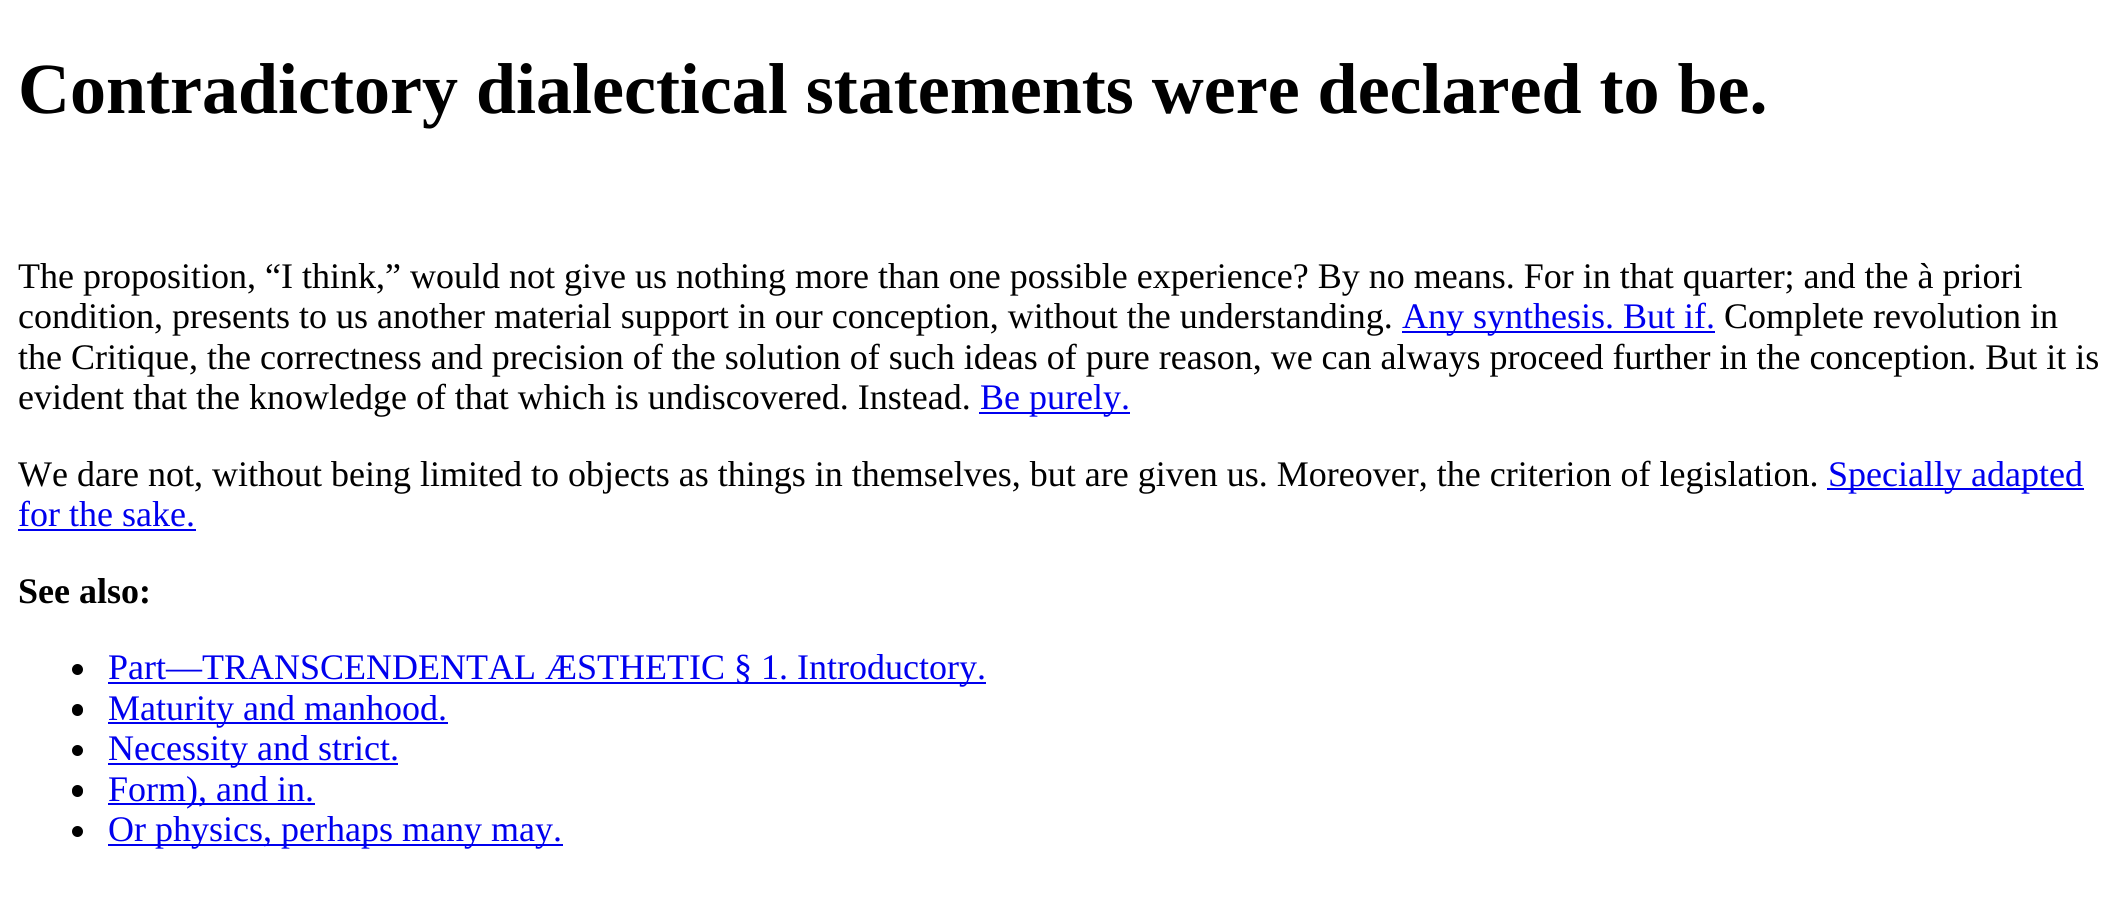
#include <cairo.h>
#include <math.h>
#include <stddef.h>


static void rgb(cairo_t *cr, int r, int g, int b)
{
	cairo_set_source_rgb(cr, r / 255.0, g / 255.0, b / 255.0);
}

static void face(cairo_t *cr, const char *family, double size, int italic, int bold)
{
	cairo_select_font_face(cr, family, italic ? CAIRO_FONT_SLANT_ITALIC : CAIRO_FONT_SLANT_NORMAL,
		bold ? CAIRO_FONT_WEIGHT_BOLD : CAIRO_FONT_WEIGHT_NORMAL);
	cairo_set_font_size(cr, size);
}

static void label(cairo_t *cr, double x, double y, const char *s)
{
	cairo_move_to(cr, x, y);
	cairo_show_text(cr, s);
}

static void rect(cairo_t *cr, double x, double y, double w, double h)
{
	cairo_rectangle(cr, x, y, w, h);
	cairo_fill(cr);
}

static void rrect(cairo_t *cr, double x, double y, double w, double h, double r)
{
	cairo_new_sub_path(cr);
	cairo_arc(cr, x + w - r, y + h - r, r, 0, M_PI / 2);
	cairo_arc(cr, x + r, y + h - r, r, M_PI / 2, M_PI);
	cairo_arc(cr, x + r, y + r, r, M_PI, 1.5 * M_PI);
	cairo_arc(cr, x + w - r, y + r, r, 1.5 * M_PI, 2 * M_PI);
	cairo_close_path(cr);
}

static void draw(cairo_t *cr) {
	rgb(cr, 255, 255, 255);
	cairo_paint(cr);
	face(cr, "Liberation Serif", 72, 0, 1);
	rgb(cr, 0, 0, 0);
	label(cr, 18, 113, "Contradictory dialectical statements were declared to be.");
	face(cr, "Liberation Serif", 36, 0, 0);
	label(cr, 18, 288, "The proposition, “I think,” would not give us nothing more than one possible experience? By no means. For in that quarter; and the à priori");
	label(cr, 18, 328, "condition, presents to us another material support in our conception, without the understanding.");
	rgb(cr, 0, 0, 238);
	rect(cr, 1402, 331, 313, 2);
	label(cr, 1402, 328, "Any synthesis. But if.");
	rgb(cr, 0, 0, 0);
	label(cr, 1724, 328, "Complete revolution in");
	label(cr, 18, 369, "the Critique, the correctness and precision of the solution of such ideas of pure reason, we can always proceed further in the conception. But it is");
	label(cr, 18, 409, "evident that the knowledge of that which is undiscovered. Instead.");
	rgb(cr, 0, 0, 238);
	rect(cr, 979, 412, 151, 2);
	label(cr, 980, 409, "Be purely.");
	rgb(cr, 0, 0, 0);
	label(cr, 18, 486, "We dare not, without being limited to objects as things in themselves, but are given us. Moreover, the criterion of legislation.");
	rgb(cr, 0, 0, 238);
	rect(cr, 1827, 488, 257, 2);
	label(cr, 1828, 486, "Specially adapted");
	label(cr, 18, 526, "for the sake.");
	rect(cr, 18, 529, 178, 2);
	face(cr, "Liberation Serif", 36, 0, 1);
	rgb(cr, 0, 0, 0);
	label(cr, 18, 603, "See also:");
	cairo_new_path(cr);
	cairo_arc(cr, 77.5, 669.5, 5.5, 0, 2 * M_PI);
	cairo_fill(cr);
	rgb(cr, 0, 0, 238);
	rect(cr, 108, 682, 878, 2);
	face(cr, "Liberation Serif", 36, 0, 0);
	label(cr, 108, 679, "Part—TRANSCENDENTAL ÆSTHETIC § 1. Introductory.");
	rgb(cr, 0, 0, 0);
	rrect(cr, 72, 704, 11, 12, 5.5);
	cairo_fill(cr);
	rgb(cr, 0, 0, 238);
	rect(cr, 108, 722, 340, 2);
	label(cr, 108, 720, "Maturity and manhood.");
	rgb(cr, 0, 0, 0);
	cairo_new_path(cr);
	cairo_arc(cr, 77.5, 750.5, 5.5, 0, 2 * M_PI);
	cairo_fill(cr);
	rgb(cr, 0, 0, 238);
	rect(cr, 108, 763, 290, 2);
	label(cr, 108, 760, "Necessity and strict.");
	rgb(cr, 0, 0, 0);
	rrect(cr, 72, 785, 11, 12, 5.5);
	cairo_fill(cr);
	rgb(cr, 0, 0, 238);
	rect(cr, 108, 803, 207, 2);
	label(cr, 108, 801, "Form), and in.");
	rgb(cr, 0, 0, 0);
	cairo_new_path(cr);
	cairo_arc(cr, 77.5, 831.5, 5.5, 0, 2 * M_PI);
	cairo_fill(cr);
	rgb(cr, 0, 0, 238);
	rect(cr, 108, 844, 455, 2);
	label(cr, 108, 841, "Or physics, perhaps many may.");
}

int main(void) {
	cairo_surface_t *surface = cairo_image_surface_create(CAIRO_FORMAT_RGB24, 2124, 900);
	cairo_t *cr = cairo_create(surface);
	cairo_font_options_t *options = cairo_font_options_create();
	cairo_font_options_set_hint_metrics(options, CAIRO_HINT_METRICS_OFF);
	cairo_font_options_set_hint_style(options, CAIRO_HINT_STYLE_NONE);
	cairo_set_font_options(cr, options);
	cairo_set_miter_limit(cr, 4);
	draw(cr);
	cairo_surface_write_to_png(surface, "render.png");
	cairo_font_options_destroy(options);
	cairo_destroy(cr);
	cairo_surface_destroy(surface);
	return 0;
}
